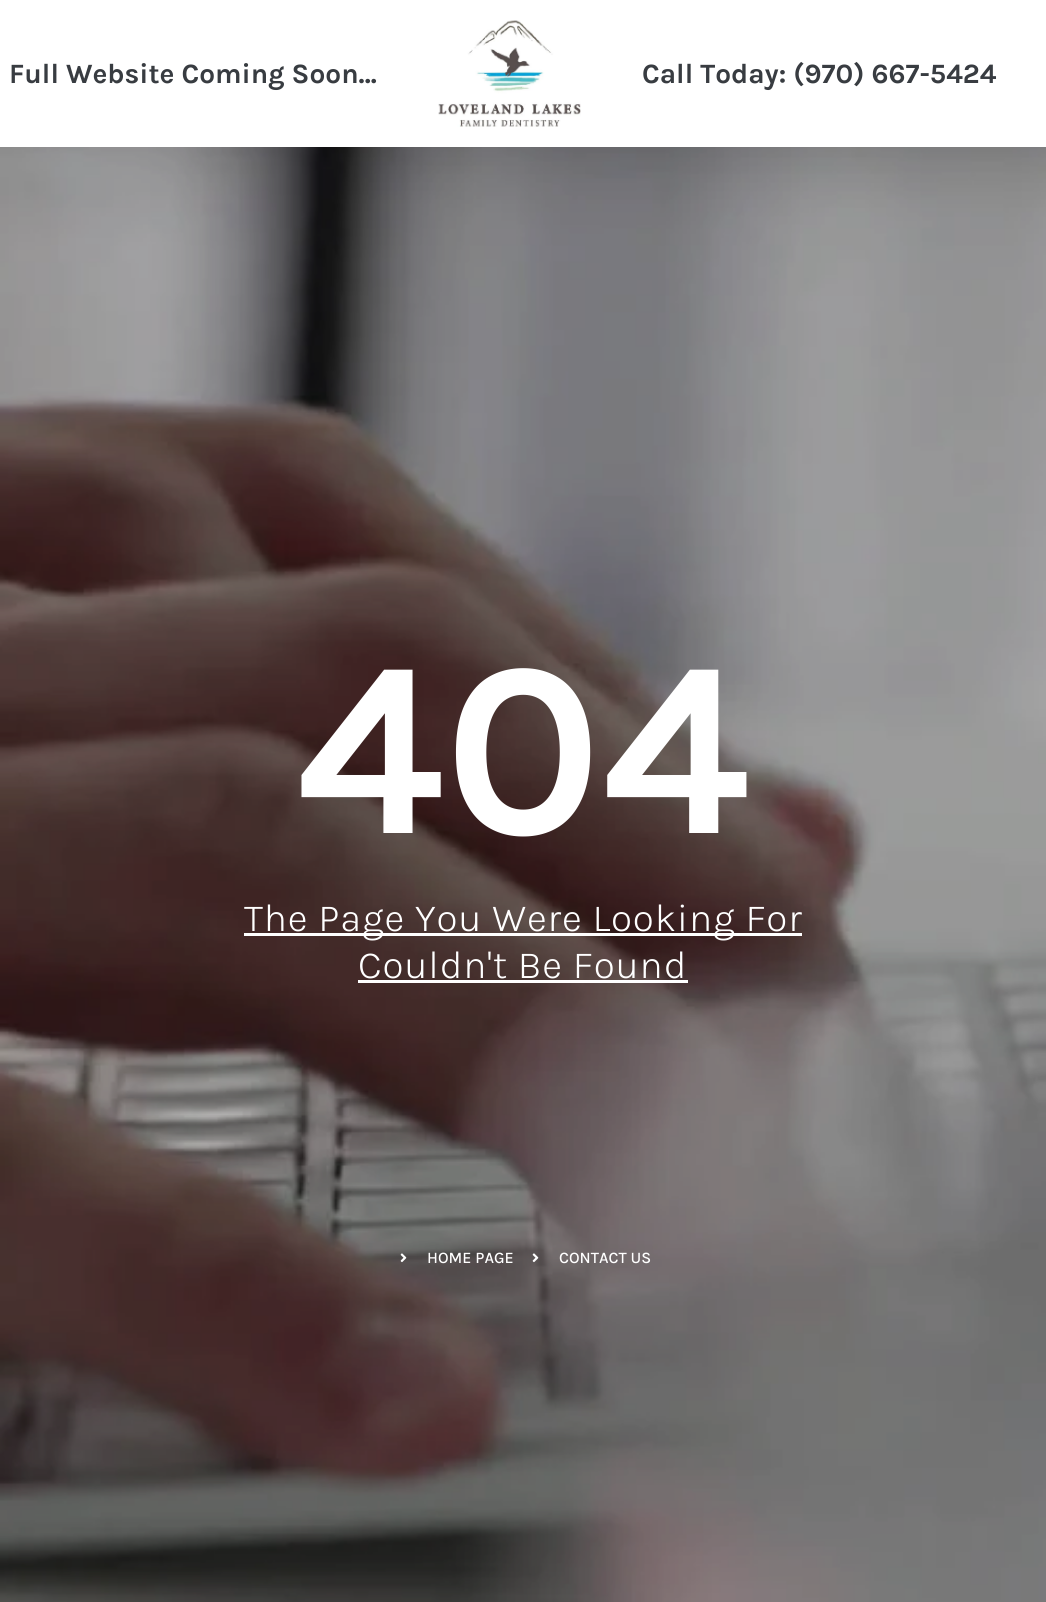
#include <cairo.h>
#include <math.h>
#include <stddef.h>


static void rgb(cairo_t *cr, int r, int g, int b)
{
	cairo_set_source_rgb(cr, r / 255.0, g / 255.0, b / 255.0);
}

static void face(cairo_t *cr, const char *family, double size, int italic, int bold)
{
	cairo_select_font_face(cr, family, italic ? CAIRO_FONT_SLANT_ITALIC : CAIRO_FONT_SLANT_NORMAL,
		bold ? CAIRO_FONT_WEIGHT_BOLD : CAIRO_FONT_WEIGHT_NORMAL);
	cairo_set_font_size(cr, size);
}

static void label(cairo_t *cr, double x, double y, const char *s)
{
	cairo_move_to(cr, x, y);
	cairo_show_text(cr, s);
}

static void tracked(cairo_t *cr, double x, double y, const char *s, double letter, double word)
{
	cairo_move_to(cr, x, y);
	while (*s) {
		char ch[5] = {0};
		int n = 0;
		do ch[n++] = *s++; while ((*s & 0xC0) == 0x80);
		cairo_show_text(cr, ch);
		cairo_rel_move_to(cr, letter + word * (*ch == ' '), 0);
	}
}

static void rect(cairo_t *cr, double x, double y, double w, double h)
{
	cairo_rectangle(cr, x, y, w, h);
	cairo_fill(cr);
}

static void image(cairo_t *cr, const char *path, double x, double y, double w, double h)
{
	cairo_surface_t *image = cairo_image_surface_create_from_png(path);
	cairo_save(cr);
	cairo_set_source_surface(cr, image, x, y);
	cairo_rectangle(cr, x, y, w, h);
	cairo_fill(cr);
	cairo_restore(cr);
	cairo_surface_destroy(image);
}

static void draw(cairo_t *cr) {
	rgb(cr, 255, 255, 255);
	cairo_paint(cr);
	face(cr, "Karla", 28, 0, 1);
	rgb(cr, 56, 60, 65);
	label(cr, 9, 83, "Full Website Coming Soon...");
	image(cr, "image0.png", 438, 20, 143, 107);
	label(cr, 642, 83, "Call Today: (970) 667-5424");
	image(cr, "image1.png", 0, 147, 1046, 1455);
	face(cr, "Karla", 249, 0, 1);
	rgb(cr, 255, 255, 255);
	label(cr, 296, 833, "404");
	rect(cr, 244, 933, 558, 3);
	face(cr, "Karla Light", 39, 0, 0);
	tracked(cr, 244, 931, "The Page You Were Looking For", 0.9, 0);
	tracked(cr, 358, 978, "Couldn't Be Found", 0.9, 0);
	rect(cr, 358, 980, 330, 3);
	image(cr, "image2.png", 400, 1253, 7, 10);
	face(cr, "Karla Medium", 16, 0, 0);
	label(cr, 427, 1263, "HOME PAGE");
	image(cr, "image3.png", 532, 1253, 7, 10);
	label(cr, 559, 1263, "CONTACT US");
}

int main(void) {
	cairo_surface_t *surface = cairo_image_surface_create(CAIRO_FORMAT_RGB24, 1046, 1602);
	cairo_t *cr = cairo_create(surface);
	cairo_font_options_t *options = cairo_font_options_create();
	cairo_font_options_set_hint_metrics(options, CAIRO_HINT_METRICS_OFF);
	cairo_font_options_set_hint_style(options, CAIRO_HINT_STYLE_NONE);
	cairo_set_font_options(cr, options);
	cairo_set_miter_limit(cr, 4);
	draw(cr);
	cairo_surface_write_to_png(surface, "render.png");
	cairo_font_options_destroy(options);
	cairo_destroy(cr);
	cairo_surface_destroy(surface);
	return 0;
}
